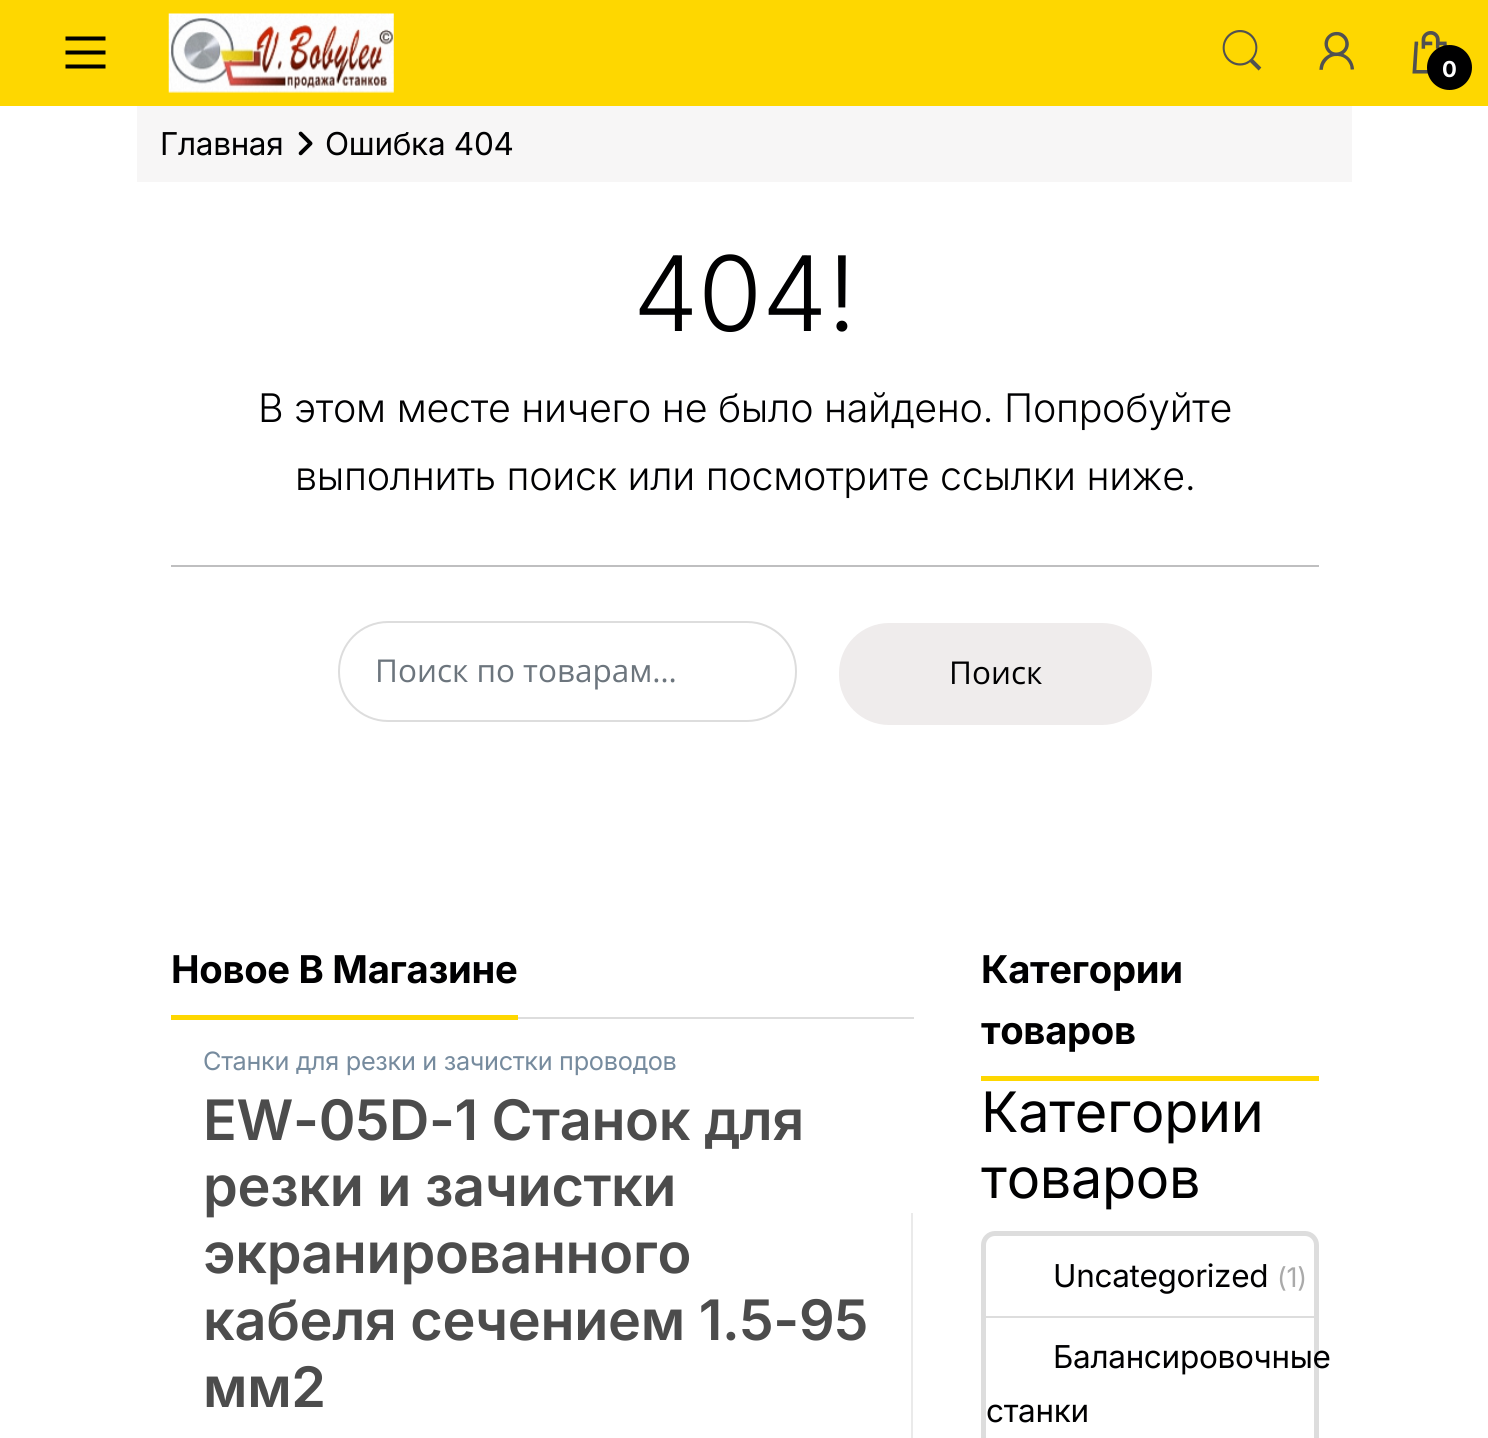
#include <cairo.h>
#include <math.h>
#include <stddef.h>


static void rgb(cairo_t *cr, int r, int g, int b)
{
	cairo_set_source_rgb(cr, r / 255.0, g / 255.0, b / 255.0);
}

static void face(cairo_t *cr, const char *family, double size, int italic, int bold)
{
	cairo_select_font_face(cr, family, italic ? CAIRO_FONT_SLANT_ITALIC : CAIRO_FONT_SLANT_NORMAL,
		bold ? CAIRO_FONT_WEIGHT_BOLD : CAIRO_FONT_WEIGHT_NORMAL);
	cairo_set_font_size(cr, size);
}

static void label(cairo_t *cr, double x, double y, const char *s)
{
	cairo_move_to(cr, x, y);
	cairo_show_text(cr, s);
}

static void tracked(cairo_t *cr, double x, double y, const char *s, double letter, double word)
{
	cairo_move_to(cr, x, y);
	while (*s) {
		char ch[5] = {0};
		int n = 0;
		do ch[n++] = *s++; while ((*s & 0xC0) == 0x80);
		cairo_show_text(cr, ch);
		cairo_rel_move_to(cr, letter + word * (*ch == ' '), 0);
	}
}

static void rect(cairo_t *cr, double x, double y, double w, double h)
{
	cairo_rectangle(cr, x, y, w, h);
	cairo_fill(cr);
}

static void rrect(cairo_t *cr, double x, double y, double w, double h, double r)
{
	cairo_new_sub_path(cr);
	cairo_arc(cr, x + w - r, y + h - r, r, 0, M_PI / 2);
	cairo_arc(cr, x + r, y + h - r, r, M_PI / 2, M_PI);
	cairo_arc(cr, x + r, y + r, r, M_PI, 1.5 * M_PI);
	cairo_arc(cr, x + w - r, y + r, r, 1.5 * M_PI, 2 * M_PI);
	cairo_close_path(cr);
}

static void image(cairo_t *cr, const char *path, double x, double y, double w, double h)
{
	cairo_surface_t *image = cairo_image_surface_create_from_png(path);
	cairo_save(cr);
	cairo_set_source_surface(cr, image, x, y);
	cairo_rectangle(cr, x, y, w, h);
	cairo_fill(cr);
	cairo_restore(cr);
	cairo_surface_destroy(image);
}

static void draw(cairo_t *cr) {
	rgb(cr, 255, 255, 255);
	cairo_paint(cr);
	rgb(cr, 254, 215, 0);
	rect(cr, 0, 0, 1488, 106);
	rgb(cr, 0, 0, 0);
	cairo_new_path(cr);
	cairo_move_to(cr, 65.5, 68.5);
	cairo_line_to(cr, 65.5, 64.5);
	cairo_line_to(cr, 105.5, 64.5);
	cairo_line_to(cr, 105.5, 68.5);
	cairo_close_path(cr);
	cairo_move_to(cr, 65.5, 50.5);
	cairo_line_to(cr, 105.5, 50.5);
	cairo_line_to(cr, 105.5, 54.5);
	cairo_line_to(cr, 65.5, 54.5);
	cairo_close_path(cr);
	cairo_move_to(cr, 65.5, 36.5);
	cairo_line_to(cr, 105.5, 36.5);
	cairo_line_to(cr, 105.5, 40.5);
	cairo_line_to(cr, 65.5, 40.5);
	cairo_close_path(cr);
	cairo_fill(cr);
	image(cr, "image0.png", 168, 13, 226, 80);
	image(cr, "image1.png", 1222, 30, 40, 41);
	image(cr, "image2.png", 1319, 31, 36, 39);
	image(cr, "image3.png", 1412, 31, 35, 43);
	rgb(cr, 0, 0, 1);
	cairo_arc(cr, 1449.5, 67.5, 22.5, 0, 2 * M_PI);
	cairo_fill(cr);
	face(cr, "Inter", 22, 0, 1);
	rgb(cr, 255, 255, 255);
	tracked(cr, 1442, 77, "0", -0.3, 0);
	rgb(cr, 247, 246, 246);
	rect(cr, 137, 106, 1215, 76);
	face(cr, "Inter", 31.5, 0, 0);
	rgb(cr, 0, 0, 1);
	tracked(cr, 160, 155, "Главная", -0.3, 0);
	image(cr, "image4.png", 298, 131, 15, 25);
	tracked(cr, 325, 155, "Ошибка 404", -0.3, 0);
	face(cr, "Inter Light", 104, 0, 0);
	tracked(cr, 633, 331, "404!", -0.3, 0);
	face(cr, "Inter Light", 39.4, 0, 0);
	tracked(cr, 258, 422, "В этом месте ничего не было найдено. Попробуйте", -0.3, 0);
	tracked(cr, 295, 490, "выполнить поиск или посмотрите ссылки ниже.", -0.3, 0);
	rgb(cr, 191, 191, 192);
	rect(cr, 171, 565, 1148, 2);
	rrect(cr, 339, 622, 457, 99, 49);
	rgb(cr, 221, 221, 221);
	cairo_stroke(cr);
	face(cr, "Open Sans", 31.5, 0, 0);
	rgb(cr, 108, 117, 125);
	label(cr, 375, 682, "Поиск по товарам…");
	rgb(cr, 239, 236, 236);
	rrect(cr, 840, 624, 311, 100, 49);
	cairo_fill_preserve(cr);
	cairo_stroke(cr);
	rgb(cr, 0, 0, 1);
	label(cr, 949, 684, "Поиск");
	rgb(cr, 221, 221, 221);
	rect(cr, 518, 1017, 396, 2);
	face(cr, "Inter", 38.25, 0, 1);
	rgb(cr, 0, 0, 1);
	tracked(cr, 171, 983, "Новое В Магазине", -0.3, 0);
	rgb(cr, 254, 215, 0);
	rect(cr, 171, 1015, 347, 5);
	face(cr, "Inter", 25.25, 0, 0);
	rgb(cr, 118, 139, 158);
	tracked(cr, 203, 1070, "Станки для резки и зачистки проводов", -0.3, 0);
	face(cr, "Inter SemiBold", 55.75, 0, 0);
	rgb(cr, 76, 76, 76);
	tracked(cr, 203, 1140, "EW-05D-1 Станок для", -0.3, 0);
	tracked(cr, 203, 1206, "резки и зачистки", -0.3, 0);
	tracked(cr, 203, 1273, "экранированного", -0.3, 0);
	tracked(cr, 203, 1340, "кабеля сечением 1.5-95", -0.3, 0);
	tracked(cr, 203, 1407, "мм2", -0.3, 0);
	rgb(cr, 234, 234, 234);
	rect(cr, 911, 1213, 2, 225);
	face(cr, "Inter", 38.25, 0, 1);
	rgb(cr, 0, 0, 1);
	tracked(cr, 981, 983, "Категории", -0.3, 0);
	tracked(cr, 981, 1044, "товаров", -0.3, 0);
	rgb(cr, 254, 215, 0);
	rect(cr, 981, 1076, 338, 5);
	face(cr, "Inter", 55.75, 0, 0);
	rgb(cr, 0, 0, 1);
	tracked(cr, 981, 1132, "Категории", -0.3, 0);
	tracked(cr, 981, 1198, "товаров", -0.3, 0);
	rrect(cr, 983.5, 1233.5, 333, 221, 11.5);
	rgb(cr, 221, 221, 221);
	cairo_set_line_width(cr, 5);
	cairo_stroke(cr);
	face(cr, "Inter", 31.5, 0, 0);
	rgb(cr, 0, 0, 1);
	tracked(cr, 1053, 1287, "Uncategorized", -0.3, 0);
	face(cr, "Inter", 27, 0, 0);
	rgb(cr, 170, 170, 170);
	tracked(cr, 1277, 1287, "(1)", -0.3, 0);
	rgb(cr, 221, 221, 221);
	rect(cr, 986, 1316, 328, 2);
	face(cr, "Inter", 31.5, 0, 0);
	rgb(cr, 0, 0, 1);
	tracked(cr, 1053, 1368, "Балансировочные", -0.3, 0);
	tracked(cr, 986, 1422, "станки", -0.3, 0);
}

int main(void) {
	cairo_surface_t *surface = cairo_image_surface_create(CAIRO_FORMAT_RGB24, 1488, 1438);
	cairo_t *cr = cairo_create(surface);
	cairo_font_options_t *options = cairo_font_options_create();
	cairo_font_options_set_hint_metrics(options, CAIRO_HINT_METRICS_OFF);
	cairo_font_options_set_hint_style(options, CAIRO_HINT_STYLE_NONE);
	cairo_set_font_options(cr, options);
	cairo_set_miter_limit(cr, 4);
	draw(cr);
	cairo_surface_write_to_png(surface, "render.png");
	cairo_font_options_destroy(options);
	cairo_destroy(cr);
	cairo_surface_destroy(surface);
	return 0;
}
